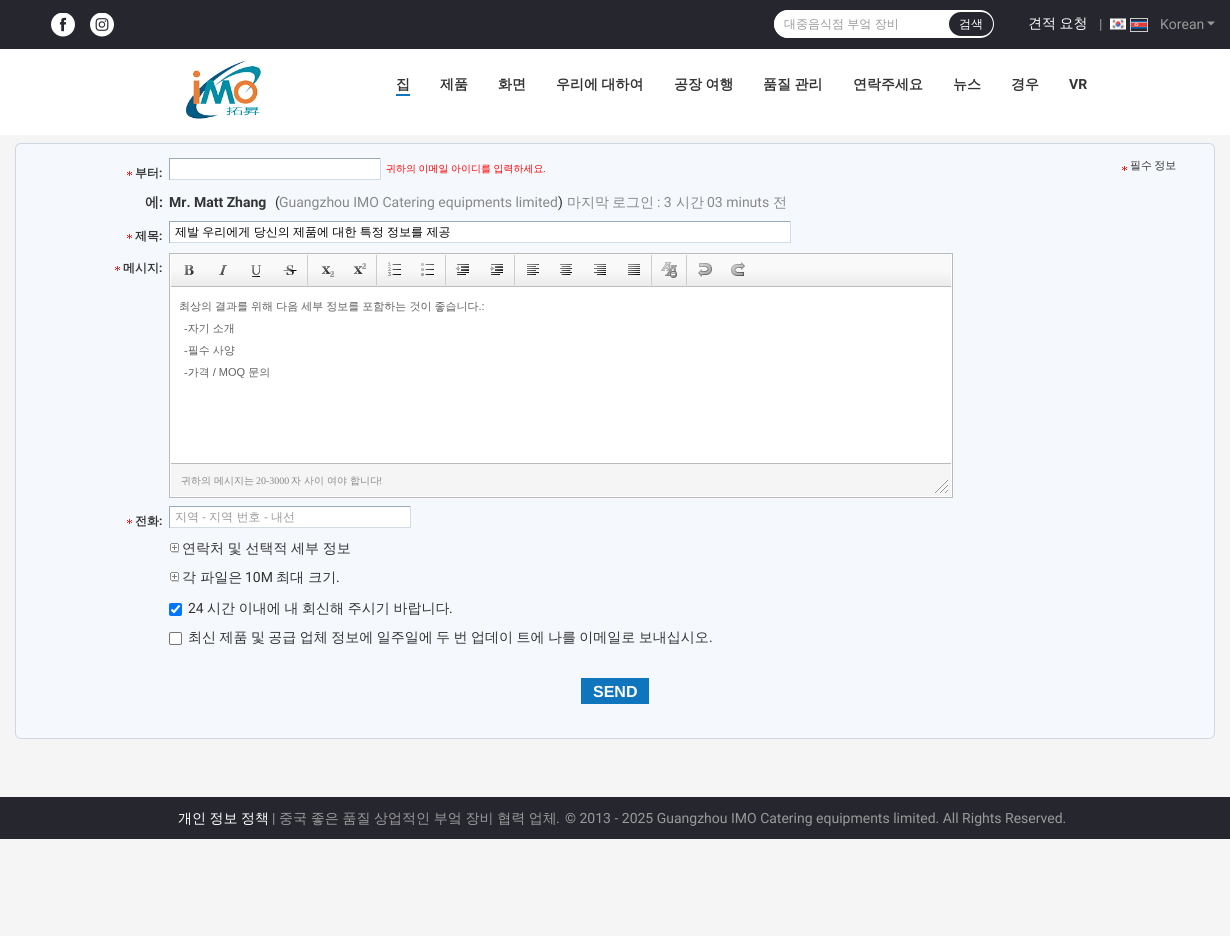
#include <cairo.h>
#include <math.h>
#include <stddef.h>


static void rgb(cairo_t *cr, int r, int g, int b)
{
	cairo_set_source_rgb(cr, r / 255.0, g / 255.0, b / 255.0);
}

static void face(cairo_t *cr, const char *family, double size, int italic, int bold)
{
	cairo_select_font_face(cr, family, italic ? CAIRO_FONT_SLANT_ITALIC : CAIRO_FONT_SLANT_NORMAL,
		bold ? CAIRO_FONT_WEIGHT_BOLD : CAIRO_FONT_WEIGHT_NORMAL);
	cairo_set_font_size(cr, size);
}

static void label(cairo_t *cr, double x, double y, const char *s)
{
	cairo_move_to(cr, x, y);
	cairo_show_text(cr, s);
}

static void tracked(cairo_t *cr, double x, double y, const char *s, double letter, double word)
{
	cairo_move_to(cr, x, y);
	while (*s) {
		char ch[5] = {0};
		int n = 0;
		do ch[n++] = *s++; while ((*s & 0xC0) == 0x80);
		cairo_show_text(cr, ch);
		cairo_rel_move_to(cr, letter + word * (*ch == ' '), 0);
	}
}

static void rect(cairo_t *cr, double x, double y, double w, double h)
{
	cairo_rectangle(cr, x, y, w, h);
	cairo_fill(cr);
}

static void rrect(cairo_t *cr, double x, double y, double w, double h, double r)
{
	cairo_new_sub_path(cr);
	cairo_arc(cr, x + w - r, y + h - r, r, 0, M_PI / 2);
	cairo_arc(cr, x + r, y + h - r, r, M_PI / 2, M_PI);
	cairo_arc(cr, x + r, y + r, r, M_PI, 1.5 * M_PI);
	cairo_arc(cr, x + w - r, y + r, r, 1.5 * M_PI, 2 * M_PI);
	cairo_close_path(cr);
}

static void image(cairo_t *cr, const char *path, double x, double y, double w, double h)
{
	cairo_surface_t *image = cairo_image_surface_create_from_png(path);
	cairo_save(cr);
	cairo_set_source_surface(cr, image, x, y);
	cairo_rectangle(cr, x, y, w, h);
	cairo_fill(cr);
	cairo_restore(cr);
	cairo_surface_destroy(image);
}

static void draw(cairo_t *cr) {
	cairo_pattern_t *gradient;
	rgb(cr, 245, 245, 245);
	cairo_paint(cr);
	rgb(cr, 255, 255, 255);
	rect(cr, 0, 49, 1230, 86);
	rgb(cr, 38, 38, 46);
	rect(cr, 0, 0, 1230, 49);
	image(cr, "image0.png", 51, 13, 24, 24);
	image(cr, "image1.png", 90, 13, 24, 24);
	rgb(cr, 255, 255, 255);
	rrect(cr, 774, 10, 220, 28, 14);
	cairo_fill(cr);
	cairo_new_path(cr);
	cairo_move_to(cr, 788, 10);
	cairo_line_to(cr, 949, 10);
	cairo_line_to(cr, 949, 38);
	cairo_line_to(cr, 788, 38);
	cairo_curve_to(cr, 780.5, 38, 774, 31.5, 774, 24);
	cairo_curve_to(cr, 774, 16.5, 780.5, 10, 788, 10);
	cairo_close_path(cr);
	cairo_fill(cr);
	face(cr, "WenQuanYi Zen Hei Medium", 12, 0, 0);
	rgb(cr, 153, 153, 153);
	tracked(cr, 784, 28, "대중음식점 부엌 장비", 0, -0.25);
	rgb(cr, 38, 38, 46);
	rrect(cr, 949, 12, 44, 24, 12);
	cairo_fill(cr);
	rgb(cr, 255, 255, 255);
	label(cr, 959, 28, "검색");
	face(cr, "WenQuanYi Zen Hei Medium", 14, 0, 0);
	tracked(cr, 1028, 28, "견적 요청", 0, -0.75);
	face(cr, "Roboto", 14, 0, 0);
	rgb(cr, 153, 153, 153);
	label(cr, 1099, 29, "|");
	image(cr, "image2.png", 1110, 18, 16, 12);
	cairo_rectangle(cr, 1130.5, 18.5, 17, 13);
	rgb(cr, 204, 204, 204);
	cairo_set_line_width(cr, 1);
	cairo_stroke(cr);
	rgb(cr, 153, 153, 153);
	label(cr, 1160, 29, "Korean");
	image(cr, "image3.png", 1131, 20, 16, 9);
	cairo_new_path(cr);
	cairo_move_to(cr, 1207, 21.5);
	cairo_line_to(cr, 1215, 21.5);
	cairo_line_to(cr, 1211, 25.5);
	cairo_close_path(cr);
	cairo_fill(cr);
	image(cr, "image4.png", 185, 60, 77, 59);
	face(cr, "WenQuanYi Zen Hei", 14, 0, 1);
	rgb(cr, 51, 51, 51);
	label(cr, 396, 89, "집");
	rgb(cr, 15, 117, 189);
	rect(cr, 396, 94, 14, 2);
	rgb(cr, 51, 51, 51);
	label(cr, 440, 89, "제품");
	label(cr, 498, 89, "화면");
	tracked(cr, 556, 89, "우리에 대하여", 0, -0.75);
	tracked(cr, 674, 89, "공장 여행", 0, -0.75);
	tracked(cr, 763, 89, "품질 관리", 0, -0.75);
	label(cr, 853, 89, "연락주세요");
	label(cr, 953, 89, "뉴스");
	label(cr, 1011, 89, "경우");
	face(cr, "Roboto", 14, 0, 1);
	label(cr, 1069, 89, "VR");
	rgb(cr, 245, 248, 253);
	rrect(cr, 15.5, 143.5, 1199, 595, 5.5);
	cairo_fill_preserve(cr);
	rgb(cr, 207, 215, 228);
	cairo_stroke(cr);
	image(cr, "image5.png", 127, 171, 5, 5);
	face(cr, "WenQuanYi Zen Hei", 12, 0, 1);
	rgb(cr, 51, 51, 51);
	label(cr, 135, 177, "부터");
	face(cr, "Roboto", 12, 0, 1);
	label(cr, 159, 177, ":");
	rgb(cr, 255, 255, 255);
	rect(cr, 170, 159, 210, 20);
	rgb(cr, 153, 170, 189);
	rect(cr, 169, 158, 212, 1);
	rgb(cr, 210, 220, 232);
	rect(cr, 380, 158, 1, 22);
	rect(cr, 169, 179, 212, 1);
	rgb(cr, 153, 170, 189);
	rect(cr, 169, 158, 1, 22);
	face(cr, "WenQuanYi Zen Hei Medium", 10, 0, 0);
	rgb(cr, 255, 0, 0);
	tracked(cr, 386, 172, "귀하의 이메일 아이디를 입력하세요", 0, -0.5);
	face(cr, "Roboto", 10, 0, 0);
	label(cr, 543, 172, ".");
	image(cr, "image5.png", 1122, 166, 5, 5);
	face(cr, "WenQuanYi Zen Hei Medium", 11, 0, 0);
	rgb(cr, 51, 51, 51);
	tracked(cr, 1130, 169, "필수 정보", 0, -1);
	face(cr, "WenQuanYi Zen Hei", 14, 0, 1);
	label(cr, 145, 207, "에");
	face(cr, "Roboto", 14, 0, 1);
	label(cr, 159, 207, ":");
	label(cr, 169, 207, "Mr. Matt Zhang");
	face(cr, "Roboto", 14, 0, 0);
	label(cr, 275, 207, "(");
	rgb(cr, 136, 136, 136);
	label(cr, 279, 207, "Guangzhou IMO Catering equipments limited");
	rgb(cr, 51, 51, 51);
	label(cr, 558, 207, ")");
	face(cr, "WenQuanYi Zen Hei Medium", 14, 0, 0);
	rgb(cr, 136, 136, 136);
	label(cr, 567, 207, "마지막");
	label(cr, 612, 207, "로그인");
	face(cr, "Roboto", 14, 0, 0);
	label(cr, 657, 207, ": 3");
	face(cr, "WenQuanYi Zen Hei Medium", 14, 0, 0);
	label(cr, 676, 207, "시간");
	face(cr, "Roboto", 14, 0, 0);
	label(cr, 707, 207, "03 minuts");
	face(cr, "WenQuanYi Zen Hei Medium", 14, 0, 0);
	label(cr, 773, 207, "전");
	image(cr, "image5.png", 127, 234, 5, 5);
	face(cr, "WenQuanYi Zen Hei", 12, 0, 1);
	rgb(cr, 51, 51, 51);
	label(cr, 135, 240, "제목");
	face(cr, "Roboto", 12, 0, 1);
	label(cr, 159, 240, ":");
	rgb(cr, 255, 255, 255);
	rect(cr, 170, 222, 620, 20);
	rgb(cr, 153, 170, 189);
	rect(cr, 169, 221, 622, 1);
	rgb(cr, 210, 220, 232);
	rect(cr, 790, 221, 1, 22);
	rect(cr, 169, 242, 622, 1);
	rgb(cr, 153, 170, 189);
	rect(cr, 169, 221, 1, 22);
	face(cr, "WenQuanYi Zen Hei Medium", 12, 0, 0);
	rgb(cr, 0, 0, 0);
	tracked(cr, 175, 236, "제발 우리에게 당신의 제품에 대한 특정 정보를 제공", 0, -0.25);
	image(cr, "image5.png", 115, 266, 5, 5);
	face(cr, "WenQuanYi Zen Hei", 12, 0, 1);
	rgb(cr, 51, 51, 51);
	label(cr, 123, 272, "메시지");
	face(cr, "Roboto", 12, 0, 1);
	label(cr, 159, 272, ":");
	rgb(cr, 255, 255, 255);
	cairo_rectangle(cr, 169.5, 253.5, 783, 244);
	cairo_fill_preserve(cr);
	rgb(cr, 187, 187, 187);
	cairo_stroke(cr);
	gradient = cairo_pattern_create_linear(561, 254, 561, 286);
	cairo_pattern_add_color_stop_rgba(gradient, 0.5, 0.976, 0.976, 0.976, 1);
	cairo_pattern_add_color_stop_rgba(gradient, 1, 0.922, 0.922, 0.922, 1);
	cairo_set_source(cr, gradient);
	cairo_pattern_destroy(gradient);
	rect(cr, 171, 254, 780, 32);
	rgb(cr, 187, 187, 187);
	rect(cr, 171, 286, 780, 1);
	image(cr, "image6.png", 184, 265, 10, 10);
	image(cr, "image7.png", 219, 265, 8, 10);
	image(cr, "image8.png", 251, 265, 10, 12);
	image(cr, "image9.png", 283, 265, 14, 10);
	rgb(cr, 204, 204, 204);
	rect(cr, 307, 255, 1, 30);
	image(cr, "image10.png", 322, 266, 13, 11);
	image(cr, "image11.png", 354, 263, 13, 11);
	rect(cr, 376, 255, 1, 30);
	image(cr, "image12.png", 388, 262, 13, 14);
	image(cr, "image13.png", 421, 263, 13, 13);
	rect(cr, 445, 255, 1, 30);
	image(cr, "image14.png", 455, 264, 14, 11);
	image(cr, "image15.png", 490, 264, 13, 11);
	rect(cr, 514, 255, 1, 30);
	image(cr, "image16.png", 527, 264, 12, 11);
	image(cr, "image17.png", 560, 264, 12, 11);
	image(cr, "image18.png", 594, 264, 12, 11);
	image(cr, "image19.png", 628, 264, 12, 11);
	rect(cr, 651, 255, 1, 30);
	image(cr, "image20.png", 661, 262, 16, 16);
	rect(cr, 686, 255, 1, 30);
	image(cr, "image21.png", 698, 263, 14, 14);
	image(cr, "image22.png", 731, 262, 14, 14);
	image(cr, "image23.png", 180, 301, 304, 77);
	rgb(cr, 245, 245, 245);
	rect(cr, 171, 464, 780, 32);
	rgb(cr, 187, 187, 187);
	rect(cr, 171, 463, 780, 1);
	face(cr, "WenQuanYi Zen Hei Medium", 10, 0, 0);
	rgb(cr, 136, 136, 136);
	label(cr, 181, 484, "귀하의 메시지는");
	face(cr, "Liberation Serif", 10, 0, 0);
	label(cr, 256, 484, "20-3000");
	face(cr, "WenQuanYi Zen Hei Medium", 10, 0, 0);
	label(cr, 291, 484, "자 사이 여야 합니다");
	face(cr, "Liberation Serif", 10, 0, 0);
	label(cr, 379, 484, "!");
	image(cr, "image24.png", 934, 480, 14, 13);
	image(cr, "image5.png", 127, 519, 5, 5);
	face(cr, "WenQuanYi Zen Hei", 12, 0, 1);
	rgb(cr, 51, 51, 51);
	label(cr, 135, 525, "전화");
	face(cr, "Roboto", 12, 0, 1);
	label(cr, 159, 525, ":");
	rgb(cr, 255, 255, 255);
	rect(cr, 170, 507, 240, 20);
	rgb(cr, 153, 170, 189);
	rect(cr, 169, 506, 242, 1);
	rgb(cr, 210, 220, 232);
	rect(cr, 410, 506, 1, 22);
	rect(cr, 169, 527, 242, 1);
	rgb(cr, 153, 170, 189);
	rect(cr, 169, 506, 1, 22);
	face(cr, "WenQuanYi Zen Hei Medium", 12, 0, 0);
	rgb(cr, 153, 153, 153);
	label(cr, 175, 521, "지역");
	face(cr, "Liberation Sans", 12, 0, 0);
	label(cr, 202, 521, "-");
	face(cr, "WenQuanYi Zen Hei Medium", 12, 0, 0);
	label(cr, 209, 521, "지역 번호");
	face(cr, "Liberation Sans", 12, 0, 0);
	label(cr, 264, 521, "-");
	face(cr, "WenQuanYi Zen Hei Medium", 12, 0, 0);
	label(cr, 271, 521, "내선");
	image(cr, "image25.png", 170, 543, 9, 10);
	face(cr, "WenQuanYi Zen Hei Medium", 14, 0, 0);
	rgb(cr, 51, 51, 51);
	tracked(cr, 182, 553, "연락처 및 선택적 세부 정보", 0, -0.5);
	image(cr, "image25.png", 170, 572, 9, 10);
	label(cr, 182, 582, "각 파일은");
	face(cr, "Roboto", 14, 0, 0);
	label(cr, 245, 582, "10M");
	face(cr, "WenQuanYi Zen Hei Medium", 14, 0, 0);
	label(cr, 276, 582, "최대 크기");
	face(cr, "Roboto", 14, 0, 0);
	label(cr, 336, 582, ".");
	rgb(cr, 0, 117, 255);
	rrect(cr, 169, 603, 13, 13, 2);
	cairo_fill(cr);
	cairo_new_path(cr);
	cairo_move_to(cr, 171.5, 609.5);
	cairo_line_to(cr, 174, 612);
	cairo_line_to(cr, 179.5, 605.5);
	rgb(cr, 255, 255, 255);
	cairo_set_line_width(cr, 2.1);
	cairo_stroke(cr);
	rgb(cr, 51, 51, 51);
	label(cr, 188, 613, "24");
	face(cr, "WenQuanYi Zen Hei Medium", 14, 0, 0);
	tracked(cr, 207, 613, "시간 이내에 내 회신해 주시기 바랍니다", 0, -0.5);
	face(cr, "Roboto", 14, 0, 0);
	label(cr, 449, 613, ".");
	rgb(cr, 255, 255, 255);
	rrect(cr, 169.5, 632.5, 12, 12, 1.5);
	cairo_fill_preserve(cr);
	rgb(cr, 118, 118, 118);
	cairo_set_line_width(cr, 1);
	cairo_stroke(cr);
	face(cr, "WenQuanYi Zen Hei Medium", 14, 0, 0);
	rgb(cr, 51, 51, 51);
	tracked(cr, 188, 642, "최신 제품 및 공급 업체 정보에 일주일에 두 번 업데이 트에 나를 이메일로 보내십시오", 0, -0.75);
	face(cr, "Roboto", 14, 0, 0);
	label(cr, 709, 642, ".");
	rgb(cr, 15, 117, 189);
	rect(cr, 581, 678, 68, 26);
	face(cr, "Liberation Sans", 16, 0, 1);
	rgb(cr, 255, 255, 255);
	label(cr, 593, 697, "SEND");
	rgb(cr, 38, 38, 46);
	rect(cr, 0, 797, 1230, 42);
	face(cr, "WenQuanYi Zen Hei Medium", 14, 0, 0);
	rgb(cr, 255, 255, 255);
	tracked(cr, 178, 823, "개인 정보 정책", 0, -0.75);
	face(cr, "Roboto", 14, 0, 0);
	rgb(cr, 153, 153, 153);
	label(cr, 272, 823, "|");
	face(cr, "WenQuanYi Zen Hei Medium", 14, 0, 0);
	tracked(cr, 279, 823, "중국 좋은 품질 상업적인 부엌 장비 협력 업체", 0, -0.5);
	face(cr, "Roboto", 14, 0, 0);
	label(cr, 556, 823, ".");
	label(cr, 565, 823, "© 2013 - 2025 Guangzhou IMO Catering equipments limited. All Rights Reserved.");
}

int main(void) {
	cairo_surface_t *surface = cairo_image_surface_create(CAIRO_FORMAT_RGB24, 1230, 936);
	cairo_t *cr = cairo_create(surface);
	cairo_font_options_t *options = cairo_font_options_create();
	cairo_font_options_set_hint_metrics(options, CAIRO_HINT_METRICS_OFF);
	cairo_font_options_set_hint_style(options, CAIRO_HINT_STYLE_NONE);
	cairo_set_font_options(cr, options);
	cairo_set_miter_limit(cr, 4);
	draw(cr);
	cairo_surface_write_to_png(surface, "render.png");
	cairo_font_options_destroy(options);
	cairo_destroy(cr);
	cairo_surface_destroy(surface);
	return 0;
}
